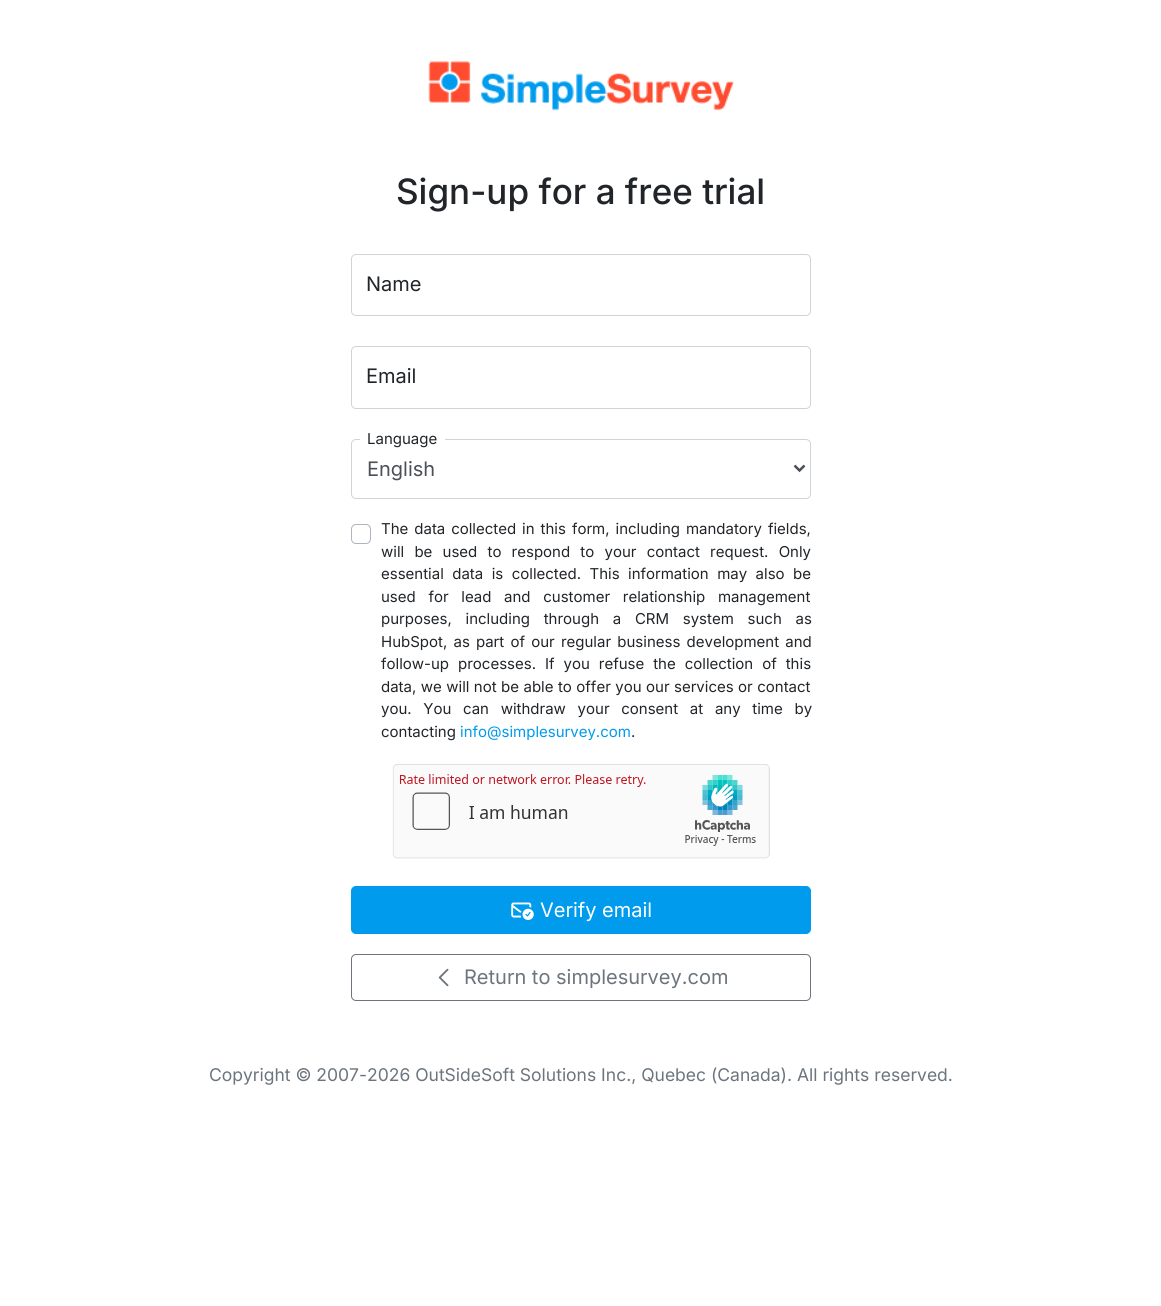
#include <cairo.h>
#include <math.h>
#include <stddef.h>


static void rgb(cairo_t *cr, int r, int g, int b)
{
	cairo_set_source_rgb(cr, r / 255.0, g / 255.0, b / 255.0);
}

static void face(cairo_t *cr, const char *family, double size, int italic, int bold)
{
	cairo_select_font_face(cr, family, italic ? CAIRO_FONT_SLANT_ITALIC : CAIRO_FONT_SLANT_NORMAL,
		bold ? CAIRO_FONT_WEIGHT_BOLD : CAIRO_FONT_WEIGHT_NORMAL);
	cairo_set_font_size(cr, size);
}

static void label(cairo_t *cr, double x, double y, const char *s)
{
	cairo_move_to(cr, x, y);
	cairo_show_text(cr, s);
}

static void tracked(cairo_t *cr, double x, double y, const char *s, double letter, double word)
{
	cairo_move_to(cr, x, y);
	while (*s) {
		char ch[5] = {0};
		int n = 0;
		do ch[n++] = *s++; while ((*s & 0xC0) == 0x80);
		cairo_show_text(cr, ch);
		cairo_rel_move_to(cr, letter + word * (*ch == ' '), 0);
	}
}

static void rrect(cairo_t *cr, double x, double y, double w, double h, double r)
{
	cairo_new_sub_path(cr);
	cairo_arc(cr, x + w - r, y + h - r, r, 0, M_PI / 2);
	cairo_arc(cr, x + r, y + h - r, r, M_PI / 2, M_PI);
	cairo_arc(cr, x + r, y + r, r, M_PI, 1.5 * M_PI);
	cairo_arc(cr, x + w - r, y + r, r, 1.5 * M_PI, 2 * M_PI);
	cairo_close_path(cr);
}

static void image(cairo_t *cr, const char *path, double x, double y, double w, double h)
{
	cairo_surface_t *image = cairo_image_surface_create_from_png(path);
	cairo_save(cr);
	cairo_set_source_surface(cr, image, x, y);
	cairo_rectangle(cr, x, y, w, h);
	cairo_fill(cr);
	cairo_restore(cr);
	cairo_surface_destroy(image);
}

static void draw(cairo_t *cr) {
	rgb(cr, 255, 255, 255);
	cairo_paint(cr);
	image(cr, "image0.png", 428, 61, 306, 50);
	face(cr, "Inter Medium", 35, 0, 0);
	rgb(cr, 33, 37, 41);
	label(cr, 396, 204, "Sign-up for a free trial");
	rrect(cr, 351.5, 254.5, 459, 61, 4.5);
	rgb(cr, 206, 212, 218);
	cairo_set_line_width(cr, 1);
	cairo_stroke(cr);
	face(cr, "Inter", 20, 0, 0);
	rgb(cr, 33, 37, 41);
	label(cr, 366, 291, "Name");
	rrect(cr, 351.5, 346.5, 459, 62, 4.5);
	rgb(cr, 206, 212, 218);
	cairo_stroke(cr);
	rgb(cr, 33, 37, 41);
	label(cr, 366, 383, "Email");
	rrect(cr, 351.5, 439.5, 459, 59, 4.5);
	rgb(cr, 206, 212, 218);
	cairo_stroke(cr);
	rgb(cr, 255, 255, 255);
	rrect(cr, 360, 429, 85, 22, 8);
	cairo_fill(cr);
	face(cr, "Inter", 15, 0, 0);
	rgb(cr, 33, 37, 41);
	label(cr, 367, 444, "Language");
	cairo_new_path(cr);
	cairo_move_to(cr, 794.5, 465.5);
	cairo_line_to(cr, 799.5, 470.5);
	cairo_line_to(cr, 804.5, 465.5);
	rgb(cr, 73, 80, 87);
	cairo_set_line_width(cr, 2.5);
	cairo_stroke(cr);
	face(cr, "Inter", 20, 0, 0);
	label(cr, 367, 476, "English");
	rrect(cr, 351.5, 524.5, 19, 19, 4.5);
	rgb(cr, 173, 181, 189);
	cairo_set_line_width(cr, 1);
	cairo_stroke(cr);
	face(cr, "Inter", 15, 0, 0);
	rgb(cr, 33, 37, 41);
	tracked(cr, 381, 534, "The data collected in this form, including mandatory fields,", 0, 1.75);
	tracked(cr, 381, 557, "will be used to respond to your contact request. Only", 0, 6);
	tracked(cr, 381, 579, "essential data is collected. This information may also be", 0, 4.25);
	tracked(cr, 381, 602, "used for lead and customer relationship management", 0, 8.5);
	tracked(cr, 381, 624, "purposes, including through a CRM system such as", 0, 9.5);
	tracked(cr, 381, 647, "HubSpot, as part of our regular business development and", 0, 2);
	tracked(cr, 381, 669, "follow-up processes. If you refuse the collection of this", 0, 4.75);
	tracked(cr, 381, 692, "data, we will not be able to offer you our services or contact", 0, 0.25);
	tracked(cr, 381, 714, "you. You can withdraw your consent at any time by", 0, 7.5);
	label(cr, 381, 737, "contacting");
	rgb(cr, 0, 155, 236);
	label(cr, 460, 737, "info@simplesurvey.com");
	rgb(cr, 33, 37, 41);
	label(cr, 631, 737, ".");
	image(cr, "image1.png", 392, 764, 378, 95);
	rgb(cr, 0, 155, 236);
	rrect(cr, 351.5, 886.5, 459, 47, 4.5);
	cairo_fill_preserve(cr);
	cairo_stroke(cr);
	image(cr, "image2.png", 511, 902, 23, 18);
	face(cr, "Inter", 20, 0, 0);
	rgb(cr, 255, 255, 255);
	label(cr, 540, 917, "Verify email");
	rrect(cr, 351.5, 954.5, 459, 46, 4.5);
	rgb(cr, 108, 117, 125);
	cairo_stroke(cr);
	image(cr, "image3.png", 438, 968, 11, 19);
	label(cr, 464, 984, "Return to simplesurvey.com");
	face(cr, "Inter", 17.5, 0, 0);
	label(cr, 209, 1081, "Copyright © 2007-2026 OutSideSoft Solutions Inc., Quebec (Canada). All rights reserved.");
}

int main(void) {
	cairo_surface_t *surface = cairo_image_surface_create(CAIRO_FORMAT_RGB24, 1161, 1306);
	cairo_t *cr = cairo_create(surface);
	cairo_font_options_t *options = cairo_font_options_create();
	cairo_font_options_set_hint_metrics(options, CAIRO_HINT_METRICS_OFF);
	cairo_font_options_set_hint_style(options, CAIRO_HINT_STYLE_NONE);
	cairo_set_font_options(cr, options);
	cairo_set_miter_limit(cr, 4);
	draw(cr);
	cairo_surface_write_to_png(surface, "render.png");
	cairo_font_options_destroy(options);
	cairo_destroy(cr);
	cairo_surface_destroy(surface);
	return 0;
}
